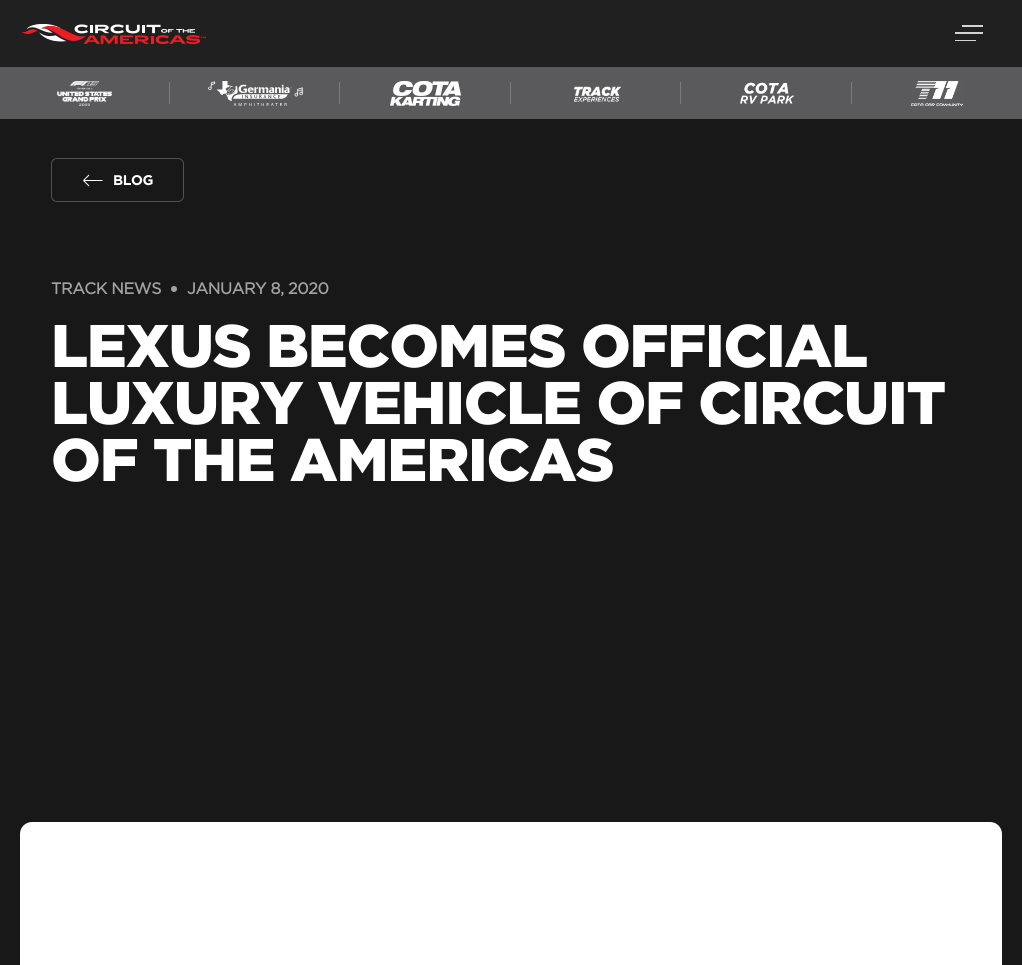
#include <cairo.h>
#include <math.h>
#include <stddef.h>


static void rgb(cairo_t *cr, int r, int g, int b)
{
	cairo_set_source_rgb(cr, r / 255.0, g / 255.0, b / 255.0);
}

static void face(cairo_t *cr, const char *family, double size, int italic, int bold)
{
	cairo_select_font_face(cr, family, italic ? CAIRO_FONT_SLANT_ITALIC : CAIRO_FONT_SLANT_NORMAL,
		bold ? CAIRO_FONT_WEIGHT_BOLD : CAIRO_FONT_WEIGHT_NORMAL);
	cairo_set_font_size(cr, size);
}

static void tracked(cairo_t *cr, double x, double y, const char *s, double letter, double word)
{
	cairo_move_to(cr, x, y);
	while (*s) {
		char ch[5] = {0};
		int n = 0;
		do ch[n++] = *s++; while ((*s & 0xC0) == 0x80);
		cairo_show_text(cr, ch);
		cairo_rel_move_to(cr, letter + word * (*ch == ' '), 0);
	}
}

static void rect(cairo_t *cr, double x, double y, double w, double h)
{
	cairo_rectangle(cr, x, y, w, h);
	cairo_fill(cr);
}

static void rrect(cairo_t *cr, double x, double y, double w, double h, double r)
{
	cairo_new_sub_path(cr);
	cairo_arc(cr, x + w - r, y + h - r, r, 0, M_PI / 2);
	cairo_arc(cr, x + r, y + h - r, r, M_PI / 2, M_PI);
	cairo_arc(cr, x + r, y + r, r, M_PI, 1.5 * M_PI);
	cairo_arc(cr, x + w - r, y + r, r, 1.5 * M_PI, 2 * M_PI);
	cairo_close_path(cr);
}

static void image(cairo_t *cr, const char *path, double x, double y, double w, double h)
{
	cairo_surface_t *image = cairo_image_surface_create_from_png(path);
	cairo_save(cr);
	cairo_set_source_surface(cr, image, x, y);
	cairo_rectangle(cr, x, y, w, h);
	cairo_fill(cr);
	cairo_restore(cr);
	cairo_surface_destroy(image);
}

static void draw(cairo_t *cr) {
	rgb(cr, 24, 24, 24);
	cairo_paint(cr);
	rgb(cr, 32, 32, 32);
	rect(cr, 0, 0, 1022, 67);
	image(cr, "image0.png", 20, 24, 186, 20);
	rgb(cr, 208, 212, 213);
	rect(cr, 962, 25, 21, 2);
	rect(cr, 955, 32, 28, 2);
	rect(cr, 955, 40, 21, 1);
	rgb(cr, 90, 90, 92);
	rect(cr, 0, 67, 1022, 52);
	image(cr, "image1.png", 57, 81, 55, 25);
	rgb(cr, 123, 123, 125);
	rect(cr, 169, 82, 1, 22);
	image(cr, "image2.png", 208, 81, 95, 25);
	rect(cr, 339, 82, 1, 22);
	image(cr, "image3.png", 390, 81, 71, 25);
	rect(cr, 510, 82, 1, 22);
	image(cr, "image4.png", 573, 86, 48, 16);
	rect(cr, 680, 82, 1, 22);
	image(cr, "image5.png", 740, 82, 55, 22);
	rect(cr, 851, 82, 1, 22);
	image(cr, "image6.png", 911, 81, 52, 25);
	cairo_new_path(cr);
	cairo_move_to(cr, 102.5, 180.5);
	cairo_line_to(cr, 83.5, 180.5);
	cairo_move_to(cr, 83.5, 180.5);
	cairo_line_to(cr, 89, 175);
	cairo_move_to(cr, 83.5, 180.5);
	cairo_line_to(cr, 89, 186);
	rgb(cr, 255, 255, 255);
	cairo_set_line_width(cr, 1);
	cairo_stroke(cr);
	rrect(cr, 51.5, 158.5, 132, 43, 5.5);
	cairo_set_source_rgba(cr, 1, 1, 1, 0.25);
	cairo_stroke(cr);
	face(cr, "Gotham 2", 14, 0, 1);
	rgb(cr, 255, 255, 255);
	tracked(cr, 113, 185, "BLOG", -0.4, 0);
	face(cr, "Gotham", 16, 0, 1);
	rgb(cr, 163, 163, 163);
	tracked(cr, 51, 294, "TRACK NEWS", -0.4, 0);
	cairo_set_source_rgba(cr, 1, 1, 1, 0.6);
	cairo_new_path(cr);
	cairo_arc(cr, 174, 289, 3, 0, 2 * M_PI);
	cairo_fill(cr);
	rgb(cr, 163, 163, 163);
	tracked(cr, 187, 294, "JANUARY 8, 2020", -0.4, 0);
	face(cr, "Gotham Black", 60, 0, 0);
	rgb(cr, 255, 255, 255);
	tracked(cr, 51, 367, "LEXUS BECOMES OFFICIAL", -1.2, 0);
	tracked(cr, 51, 424, "LUXURY VEHICLE OF CIRCUIT", -1.2, 0);
	tracked(cr, 51, 481, "OF THE AMERICAS", -1.2, 0);
	rrect(cr, 20, 822, 982, 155, 12);
	cairo_fill(cr);
}

int main(void) {
	cairo_surface_t *surface = cairo_image_surface_create(CAIRO_FORMAT_RGB24, 1022, 965);
	cairo_t *cr = cairo_create(surface);
	cairo_font_options_t *options = cairo_font_options_create();
	cairo_font_options_set_hint_metrics(options, CAIRO_HINT_METRICS_OFF);
	cairo_font_options_set_hint_style(options, CAIRO_HINT_STYLE_NONE);
	cairo_set_font_options(cr, options);
	cairo_set_miter_limit(cr, 4);
	draw(cr);
	cairo_surface_write_to_png(surface, "render.png");
	cairo_font_options_destroy(options);
	cairo_destroy(cr);
	cairo_surface_destroy(surface);
	return 0;
}
